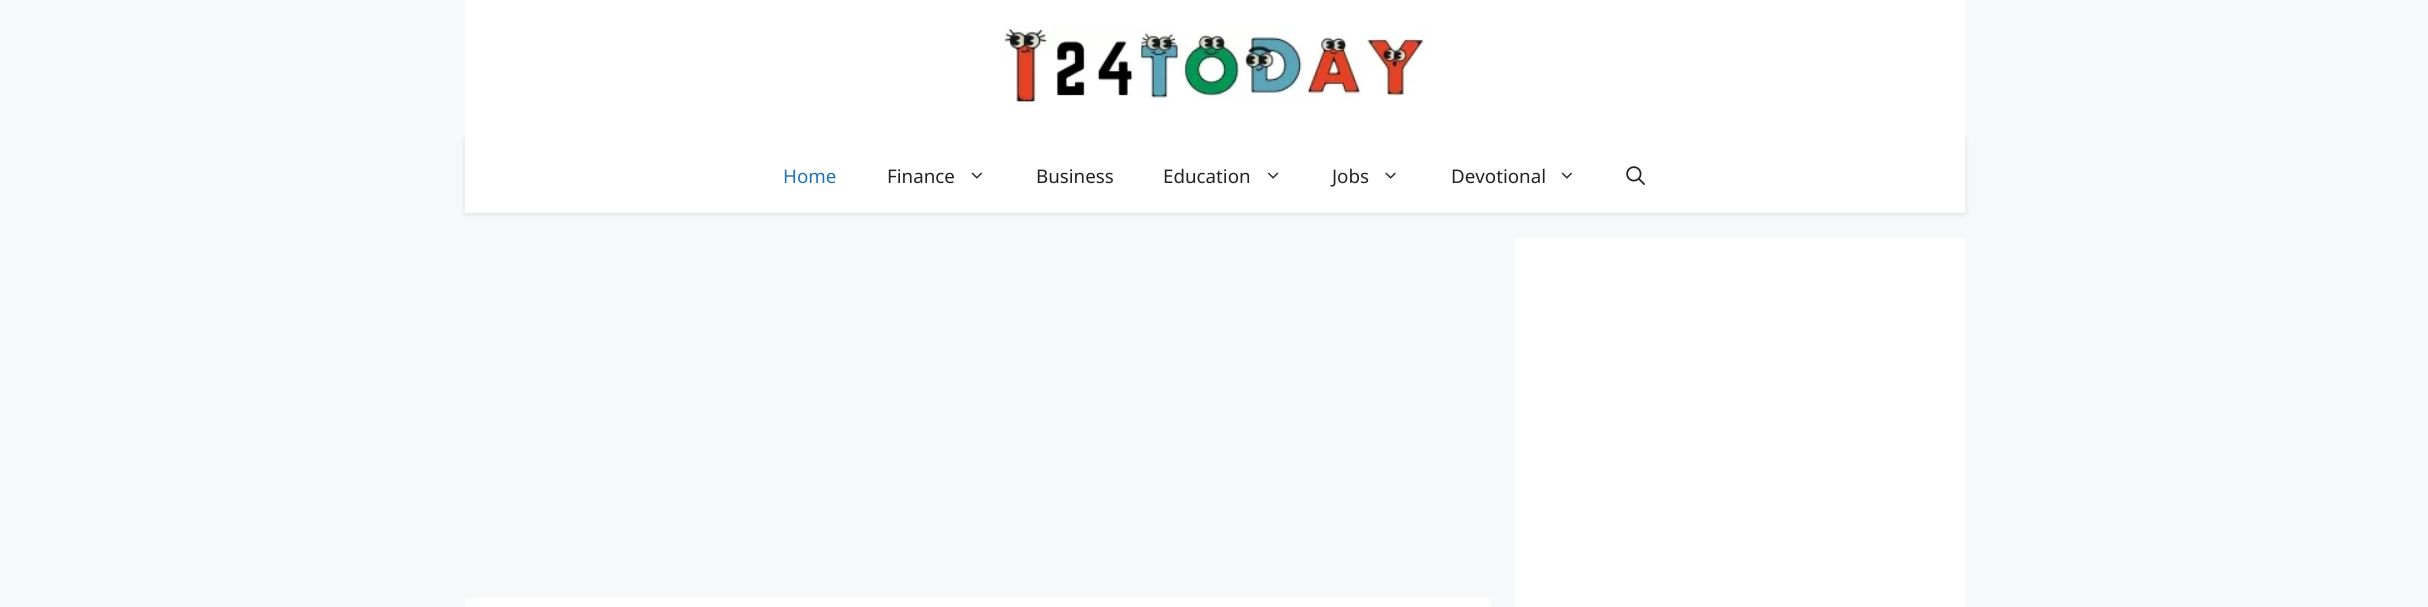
#include <cairo.h>
#include <math.h>
#include <stddef.h>


static void rgb(cairo_t *cr, int r, int g, int b)
{
	cairo_set_source_rgb(cr, r / 255.0, g / 255.0, b / 255.0);
}

static void face(cairo_t *cr, const char *family, double size, int italic, int bold)
{
	cairo_select_font_face(cr, family, italic ? CAIRO_FONT_SLANT_ITALIC : CAIRO_FONT_SLANT_NORMAL,
		bold ? CAIRO_FONT_WEIGHT_BOLD : CAIRO_FONT_WEIGHT_NORMAL);
	cairo_set_font_size(cr, size);
}

static void label(cairo_t *cr, double x, double y, const char *s)
{
	cairo_move_to(cr, x, y);
	cairo_show_text(cr, s);
}

static void rect(cairo_t *cr, double x, double y, double w, double h)
{
	cairo_rectangle(cr, x, y, w, h);
	cairo_fill(cr);
}

static void rrect(cairo_t *cr, double x, double y, double w, double h, double r)
{
	cairo_new_sub_path(cr);
	cairo_arc(cr, x + w - r, y + h - r, r, 0, M_PI / 2);
	cairo_arc(cr, x + r, y + h - r, r, M_PI / 2, M_PI);
	cairo_arc(cr, x + r, y + r, r, M_PI, 1.5 * M_PI);
	cairo_arc(cr, x + w - r, y + r, r, 1.5 * M_PI, 2 * M_PI);
	cairo_close_path(cr);
}

static void soft_shadow(cairo_t *cr, double x, double y, double w, double h, double r, double blur, double alpha)
{
	cairo_push_group_with_content(cr, CAIRO_CONTENT_ALPHA);
	cairo_set_operator(cr, CAIRO_OPERATOR_SOURCE);
	for (int i = 15; i >= -15 && fmin(w, h) + blur * i / 3 > 0; i -= 2) {
		double e = blur * i / 6;
		cairo_set_source_rgba(cr, 0, 0, 0, alpha * erfc((i - 1) / 8.5) / 2);
		rrect(cr, x - e, y - e, w + 2 * e, h + 2 * e, fmax(0, fmin(r + e + blur * .6, fmin(w, h) / 2 + e)));
		cairo_fill(cr);
	}
	cairo_pattern_t *soft = cairo_pop_group(cr);
	cairo_mask(cr, soft);
	cairo_pattern_destroy(soft);
}

static void image(cairo_t *cr, const char *path, double x, double y, double w, double h)
{
	cairo_surface_t *image = cairo_image_surface_create_from_png(path);
	cairo_save(cr);
	cairo_set_source_surface(cr, image, x, y);
	cairo_rectangle(cr, x, y, w, h);
	cairo_fill(cr);
	cairo_restore(cr);
	cairo_surface_destroy(image);
}

static void draw(cairo_t *cr) {
	rgb(cr, 247, 248, 249);
	cairo_paint(cr);
	rgb(cr, 0, 0, 0);
	soft_shadow(cr, 465, 139, 1500, 75, 0, 3, 0.1);
	rgb(cr, 255, 255, 255);
	rect(cr, 465, 0, 1500, 213);
	image(cr, "image0.png", 1003, 25, 424, 80);
	face(cr, "Noto Sans", 18.75, 0, 0);
	rgb(cr, 30, 115, 190);
	label(cr, 783, 183, "Home");
	rgb(cr, 34, 34, 34);
	label(cr, 887, 183, "Finance");
	image(cr, "image1.png", 971, 172, 11, 7);
	label(cr, 1036, 183, "Business");
	label(cr, 1163, 183, "Education");
	image(cr, "image2.png", 1268, 172, 11, 7);
	label(cr, 1332, 183, "Jobs");
	image(cr, "image3.png", 1385, 172, 11, 7);
	label(cr, 1451, 183, "Devotional");
	image(cr, "image1.png", 1561, 172, 11, 7);
	image(cr, "image4.png", 1626, 166, 19, 19);
	rgb(cr, 255, 255, 255);
	rect(cr, 465, 598, 1025, 9);
	rect(cr, 1515, 238, 450, 369);
}

int main(void) {
	cairo_surface_t *surface = cairo_image_surface_create(CAIRO_FORMAT_RGB24, 2428, 607);
	cairo_t *cr = cairo_create(surface);
	cairo_font_options_t *options = cairo_font_options_create();
	cairo_font_options_set_hint_metrics(options, CAIRO_HINT_METRICS_OFF);
	cairo_font_options_set_hint_style(options, CAIRO_HINT_STYLE_NONE);
	cairo_set_font_options(cr, options);
	cairo_set_miter_limit(cr, 4);
	draw(cr);
	cairo_surface_write_to_png(surface, "render.png");
	cairo_font_options_destroy(options);
	cairo_destroy(cr);
	cairo_surface_destroy(surface);
	return 0;
}
